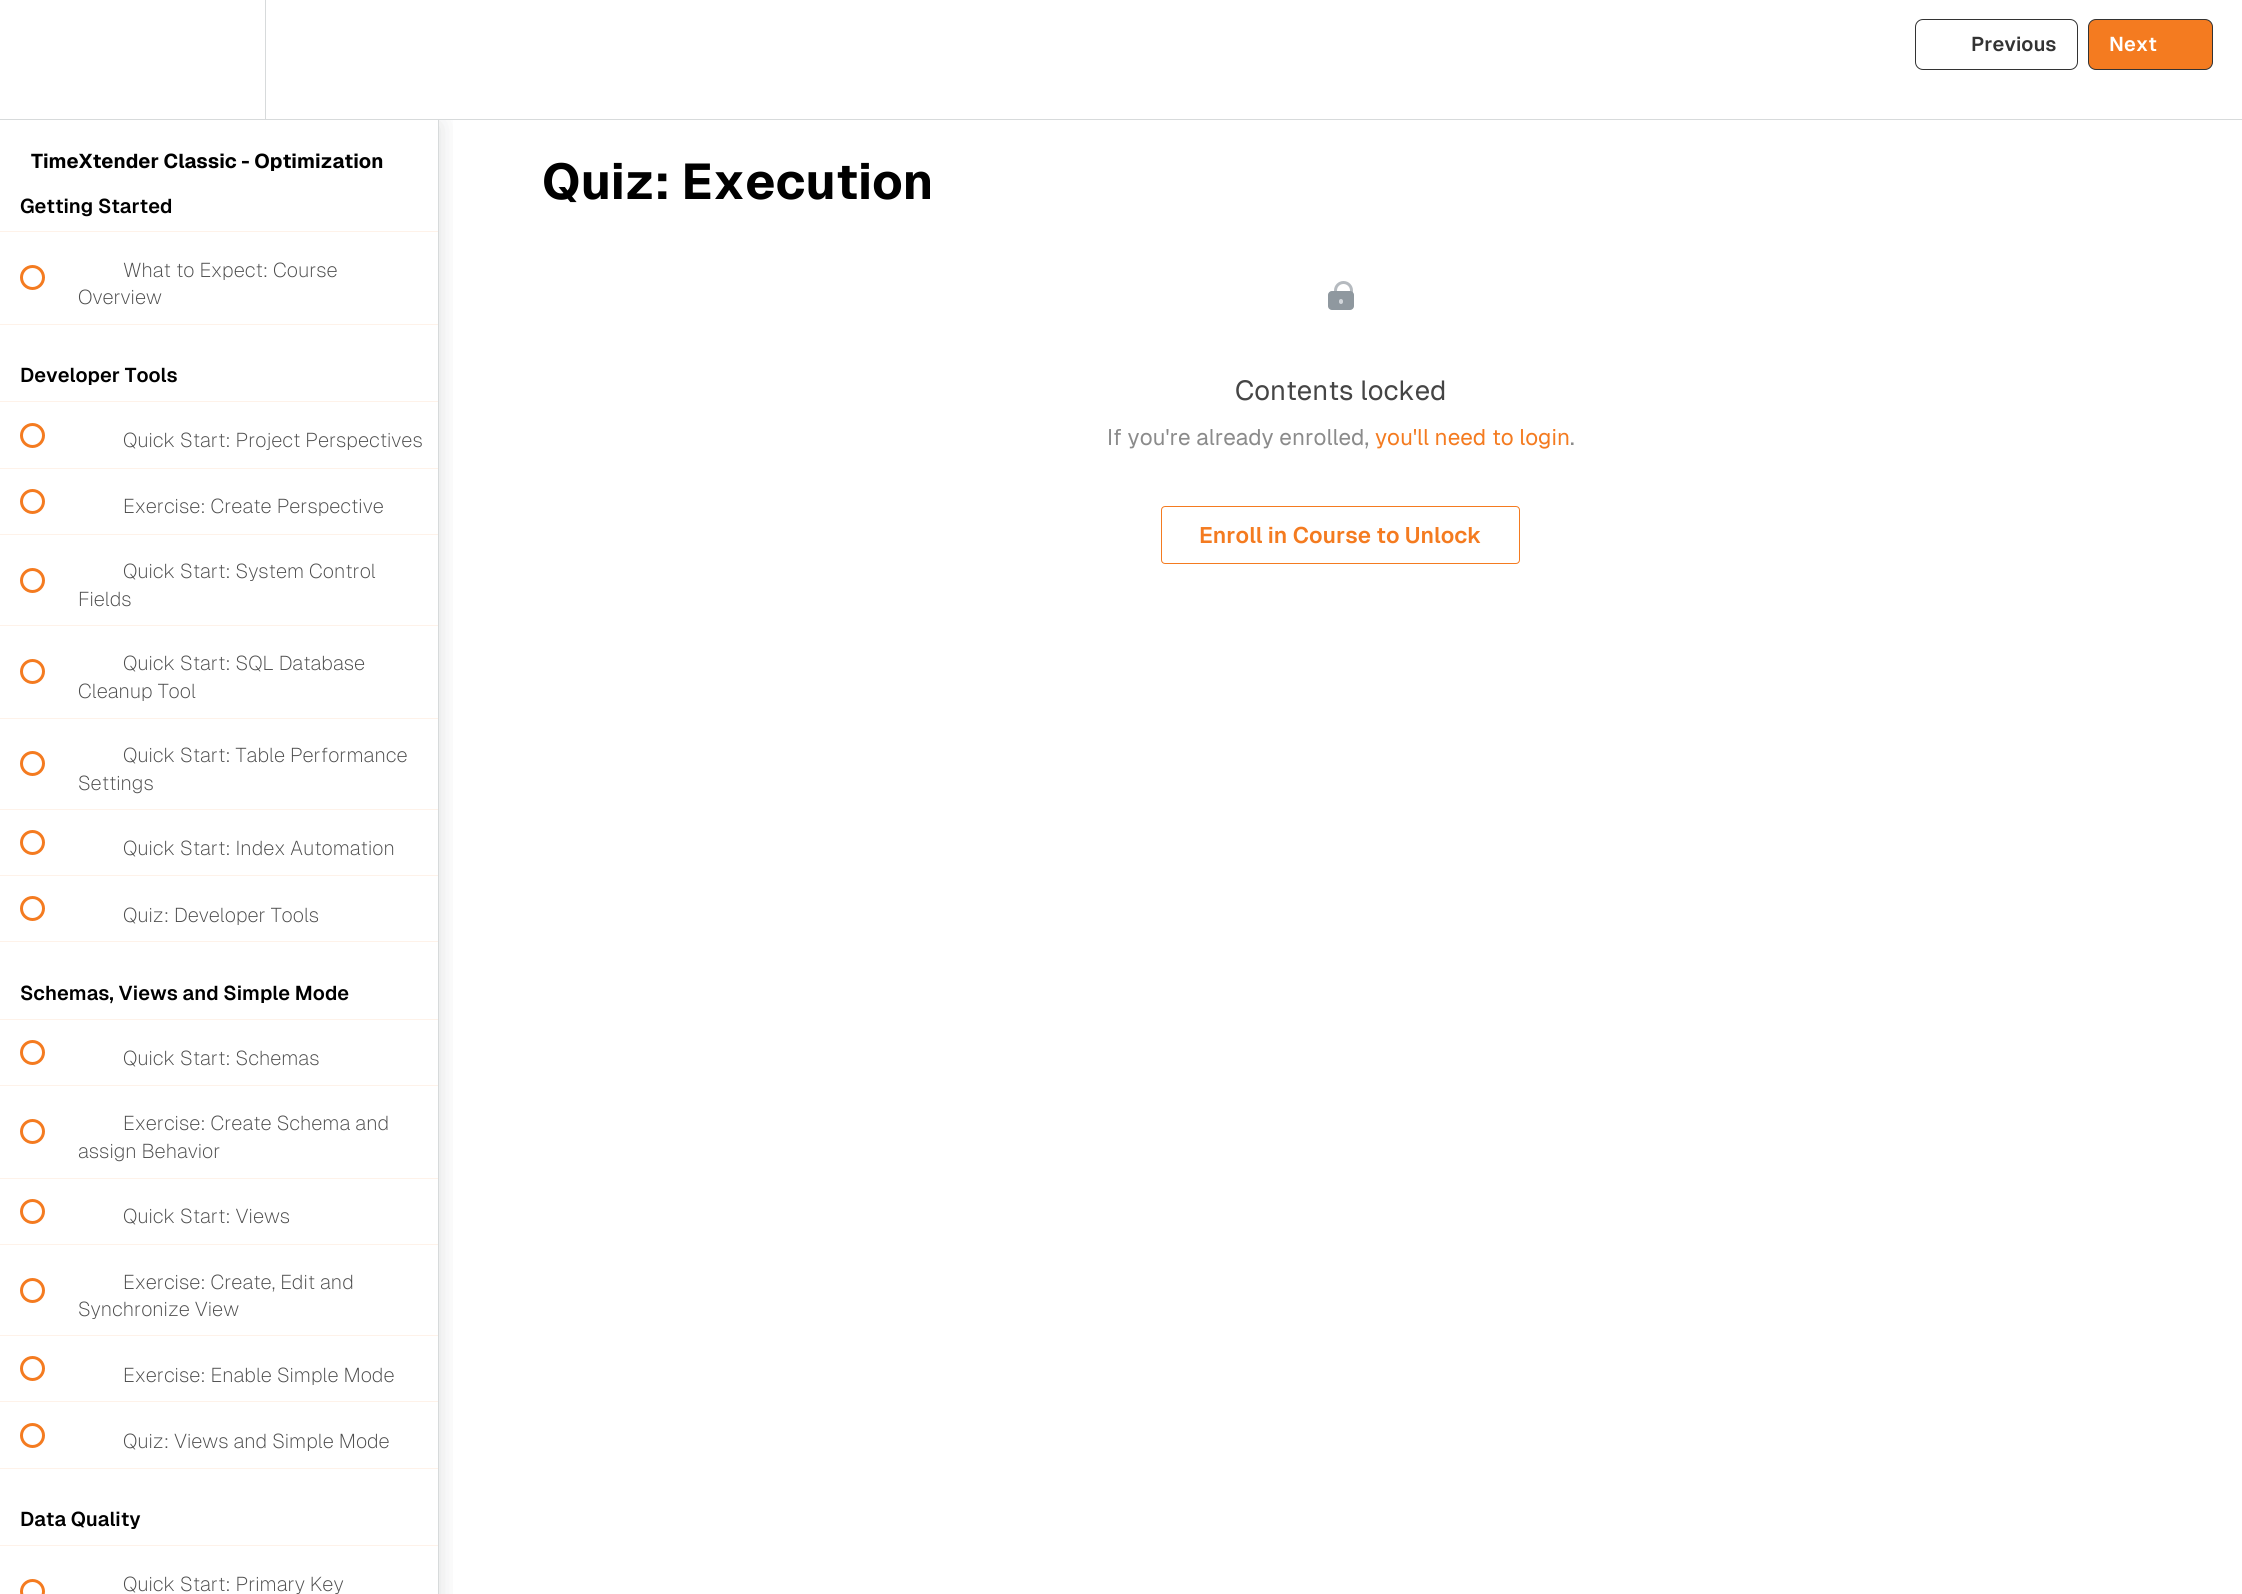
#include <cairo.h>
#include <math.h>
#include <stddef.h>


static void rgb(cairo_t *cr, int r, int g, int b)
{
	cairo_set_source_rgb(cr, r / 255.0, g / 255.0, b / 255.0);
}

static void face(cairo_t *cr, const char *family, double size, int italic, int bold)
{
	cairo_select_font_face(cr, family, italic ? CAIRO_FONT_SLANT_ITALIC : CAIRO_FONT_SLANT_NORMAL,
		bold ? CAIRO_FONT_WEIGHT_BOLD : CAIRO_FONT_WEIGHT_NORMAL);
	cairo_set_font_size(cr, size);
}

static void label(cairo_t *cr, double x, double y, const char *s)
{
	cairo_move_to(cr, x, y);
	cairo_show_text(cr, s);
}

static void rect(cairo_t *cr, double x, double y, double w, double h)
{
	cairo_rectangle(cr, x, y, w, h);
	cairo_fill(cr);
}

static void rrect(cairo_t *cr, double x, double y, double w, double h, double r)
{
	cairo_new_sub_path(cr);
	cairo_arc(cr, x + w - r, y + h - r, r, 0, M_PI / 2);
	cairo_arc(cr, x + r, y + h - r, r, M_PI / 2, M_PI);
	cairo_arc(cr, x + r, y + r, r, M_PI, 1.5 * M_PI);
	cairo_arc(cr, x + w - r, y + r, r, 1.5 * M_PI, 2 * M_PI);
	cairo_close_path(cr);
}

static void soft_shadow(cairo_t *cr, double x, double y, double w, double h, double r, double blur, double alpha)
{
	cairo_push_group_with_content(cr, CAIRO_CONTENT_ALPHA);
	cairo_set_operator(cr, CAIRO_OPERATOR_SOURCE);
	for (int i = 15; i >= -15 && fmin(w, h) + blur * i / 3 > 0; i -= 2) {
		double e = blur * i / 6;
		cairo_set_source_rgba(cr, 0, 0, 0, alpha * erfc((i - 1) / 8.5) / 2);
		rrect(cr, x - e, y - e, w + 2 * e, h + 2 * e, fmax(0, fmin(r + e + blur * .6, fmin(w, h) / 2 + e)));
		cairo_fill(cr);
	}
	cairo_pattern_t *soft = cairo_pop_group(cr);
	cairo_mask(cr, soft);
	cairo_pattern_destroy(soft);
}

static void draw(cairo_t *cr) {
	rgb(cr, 255, 255, 255);
	cairo_paint(cr);
	cairo_save(cr);
	cairo_rectangle(cr, 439, 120, 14, 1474);
	cairo_clip(cr);
	rgb(cr, 32, 39, 45);
	soft_shadow(cr, 0, 124, 439, 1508, 0, 12.5, 0.15);
	cairo_restore(cr);
	rgb(cr, 215, 218, 219);
	rect(cr, 438, 116, 1, 1478);
	rgb(cr, 255, 255, 255);
	rect(cr, 0, 106, 448, 13);
	rgb(cr, 215, 218, 219);
	rect(cr, 0, 119, 2242, 1);
	rect(cr, 265, 0, 1, 119);
	rrect(cr, 1915.5, 19.5, 162, 50, 7.5);
	rgb(cr, 51, 51, 51);
	cairo_set_line_width(cr, 1);
	cairo_stroke(cr);
	face(cr, "Geist SemiBold", 20, 0, 0);
	label(cr, 1971, 51, "Previous");
	rgb(cr, 244, 123, 32);
	rrect(cr, 2088.5, 19.5, 124, 50, 7.5);
	cairo_fill_preserve(cr);
	rgb(cr, 51, 51, 51);
	cairo_stroke(cr);
	rgb(cr, 255, 255, 255);
	label(cr, 2109, 51, "Next");
	face(cr, "Geist", 20, 0, 1);
	rgb(cr, 0, 0, 0);
	label(cr, 31, 168, "TimeXtender Classic - Optimization");
	rgb(cr, 254, 242, 233);
	rect(cr, 0, 231, 438, 1);
	face(cr, "Geist SemiBold", 20, 0, 0);
	rgb(cr, 0, 0, 0);
	label(cr, 20, 213, "Getting Started");
	rgb(cr, 254, 242, 233);
	rect(cr, 0, 324, 438, 1);
	cairo_new_path(cr);
	cairo_arc(cr, 32.5, 277.5, 11, 0, 2 * M_PI);
	rgb(cr, 244, 123, 32);
	cairo_set_line_width(cr, 3);
	cairo_stroke(cr);
	face(cr, "Geist ExtraLight", 20, 0, 0);
	rgb(cr, 77, 77, 77);
	label(cr, 123, 277, "What to Expect: Course");
	label(cr, 78, 304, "Overview");
	rgb(cr, 254, 242, 233);
	rect(cr, 0, 401, 438, 1);
	face(cr, "Geist SemiBold", 20, 0, 0);
	rgb(cr, 0, 0, 0);
	label(cr, 20, 382, "Developer Tools");
	rgb(cr, 254, 242, 233);
	rect(cr, 0, 468, 438, 1);
	cairo_new_path(cr);
	cairo_arc(cr, 32.5, 435.5, 11, 0, 2 * M_PI);
	rgb(cr, 244, 123, 32);
	cairo_stroke(cr);
	face(cr, "Geist ExtraLight", 20, 0, 0);
	rgb(cr, 77, 77, 77);
	label(cr, 123, 447, "Quick Start: Project Perspectives");
	rgb(cr, 254, 242, 233);
	rect(cr, 0, 534, 438, 1);
	cairo_new_path(cr);
	cairo_arc(cr, 32.5, 501.5, 11, 0, 2 * M_PI);
	rgb(cr, 244, 123, 32);
	cairo_stroke(cr);
	rgb(cr, 77, 77, 77);
	label(cr, 123, 513, "Exercise: Create Perspective");
	rgb(cr, 254, 242, 233);
	rect(cr, 0, 625, 438, 1);
	cairo_new_path(cr);
	cairo_arc(cr, 32.5, 580.5, 11, 0, 2 * M_PI);
	rgb(cr, 244, 123, 32);
	cairo_stroke(cr);
	rgb(cr, 77, 77, 77);
	label(cr, 123, 578, "Quick Start: System Control");
	label(cr, 78, 606, "Fields");
	rgb(cr, 254, 242, 233);
	rect(cr, 0, 718, 438, 1);
	cairo_new_path(cr);
	cairo_arc(cr, 32.5, 671.5, 11, 0, 2 * M_PI);
	rgb(cr, 244, 123, 32);
	cairo_stroke(cr);
	rgb(cr, 77, 77, 77);
	label(cr, 123, 670, "Quick Start: SQL Database");
	label(cr, 78, 698, "Cleanup Tool");
	rgb(cr, 254, 242, 233);
	rect(cr, 0, 809, 438, 1);
	cairo_new_path(cr);
	cairo_arc(cr, 32.5, 763.5, 11, 0, 2 * M_PI);
	rgb(cr, 244, 123, 32);
	cairo_stroke(cr);
	rgb(cr, 77, 77, 77);
	label(cr, 123, 762, "Quick Start: Table Performance");
	label(cr, 78, 790, "Settings");
	rgb(cr, 254, 242, 233);
	rect(cr, 0, 875, 438, 1);
	cairo_new_path(cr);
	cairo_arc(cr, 32.5, 842.5, 11, 0, 2 * M_PI);
	rgb(cr, 244, 123, 32);
	cairo_stroke(cr);
	rgb(cr, 77, 77, 77);
	label(cr, 123, 855, "Quick Start: Index Automation");
	rgb(cr, 254, 242, 233);
	rect(cr, 0, 941, 438, 1);
	cairo_new_path(cr);
	cairo_arc(cr, 32.5, 908.5, 11, 0, 2 * M_PI);
	rgb(cr, 244, 123, 32);
	cairo_stroke(cr);
	rgb(cr, 77, 77, 77);
	label(cr, 123, 922, "Quiz: Developer Tools");
	rgb(cr, 254, 242, 233);
	rect(cr, 0, 1019, 438, 1);
	face(cr, "Geist SemiBold", 20, 0, 0);
	rgb(cr, 0, 0, 0);
	label(cr, 20, 1000, "Schemas, Views and Simple Mode");
	rgb(cr, 254, 242, 233);
	rect(cr, 0, 1085, 438, 1);
	cairo_new_path(cr);
	cairo_arc(cr, 32.5, 1052.5, 11, 0, 2 * M_PI);
	rgb(cr, 244, 123, 32);
	cairo_stroke(cr);
	face(cr, "Geist ExtraLight", 20, 0, 0);
	rgb(cr, 77, 77, 77);
	label(cr, 123, 1065, "Quick Start: Schemas");
	rgb(cr, 254, 242, 233);
	rect(cr, 0, 1178, 438, 1);
	cairo_new_path(cr);
	cairo_arc(cr, 32.5, 1131.5, 11, 0, 2 * M_PI);
	rgb(cr, 244, 123, 32);
	cairo_stroke(cr);
	rgb(cr, 77, 77, 77);
	label(cr, 123, 1130, "Exercise: Create Schema and");
	label(cr, 78, 1158, "assign Behavior");
	rgb(cr, 254, 242, 233);
	rect(cr, 0, 1244, 438, 1);
	cairo_new_path(cr);
	cairo_arc(cr, 32.5, 1211.5, 11, 0, 2 * M_PI);
	rgb(cr, 244, 123, 32);
	cairo_stroke(cr);
	rgb(cr, 77, 77, 77);
	label(cr, 123, 1223, "Quick Start: Views");
	rgb(cr, 254, 242, 233);
	rect(cr, 0, 1335, 438, 1);
	cairo_new_path(cr);
	cairo_arc(cr, 32.5, 1290.5, 11, 0, 2 * M_PI);
	rgb(cr, 244, 123, 32);
	cairo_stroke(cr);
	rgb(cr, 77, 77, 77);
	label(cr, 123, 1289, "Exercise: Create, Edit and");
	label(cr, 78, 1316, "Synchronize View");
	rgb(cr, 254, 242, 233);
	rect(cr, 0, 1401, 438, 1);
	cairo_new_path(cr);
	cairo_arc(cr, 32.5, 1368.5, 11, 0, 2 * M_PI);
	rgb(cr, 244, 123, 32);
	cairo_stroke(cr);
	rgb(cr, 77, 77, 77);
	label(cr, 123, 1382, "Exercise: Enable Simple Mode");
	rgb(cr, 254, 242, 233);
	rect(cr, 0, 1468, 438, 1);
	cairo_new_path(cr);
	cairo_arc(cr, 32.5, 1435.5, 11, 0, 2 * M_PI);
	rgb(cr, 244, 123, 32);
	cairo_stroke(cr);
	rgb(cr, 77, 77, 77);
	label(cr, 123, 1448, "Quiz: Views and Simple Mode");
	rgb(cr, 254, 242, 233);
	rect(cr, 0, 1545, 438, 1);
	face(cr, "Geist SemiBold", 20, 0, 0);
	rgb(cr, 0, 0, 0);
	label(cr, 20, 1526, "Data Quality");
	cairo_new_path(cr);
	cairo_arc(cr, 32.5, 1591.5, 11, 0, 2 * M_PI);
	rgb(cr, 244, 123, 32);
	cairo_stroke(cr);
	face(cr, "Geist ExtraLight", 20, 0, 0);
	rgb(cr, 77, 77, 77);
	label(cr, 123, 1591, "Quick Start: Primary Key");
	face(cr, "Geist", 50, 0, 1);
	rgb(cr, 0, 0, 0);
	label(cr, 542, 199, "Quiz: Execution");
	rrect(cr, 1335.5, 282.5, 16, 25, 8);
	rgb(cr, 181, 186, 191);
	cairo_stroke(cr);
	rgb(cr, 143, 152, 159);
	rrect(cr, 1328, 291, 26, 19, 4);
	cairo_fill(cr);
	rgb(cr, 211, 215, 220);
	rrect(cr, 1339, 299, 4, 5, 2);
	cairo_fill(cr);
	face(cr, "Geist", 27.5, 0, 0);
	rgb(cr, 69, 69, 69);
	label(cr, 1235, 400, "Contents locked");
	face(cr, "Geist", 22.5, 0, 0);
	rgb(cr, 139, 139, 139);
	label(cr, 1107, 445, "If you're already enrolled,");
	rgb(cr, 244, 123, 32);
	label(cr, 1375, 445, "you'll need to login");
	rgb(cr, 139, 139, 139);
	label(cr, 1570, 445, ".");
	rrect(cr, 1161.5, 506.5, 358, 57, 3.5);
	rgb(cr, 244, 123, 32);
	cairo_set_line_width(cr, 1);
	cairo_stroke(cr);
	face(cr, "Geist SemiBold", 22.5, 0, 0);
	label(cr, 1199, 543, "Enroll in Course to Unlock");
}

int main(void) {
	cairo_surface_t *surface = cairo_image_surface_create(CAIRO_FORMAT_RGB24, 2242, 1594);
	cairo_t *cr = cairo_create(surface);
	cairo_font_options_t *options = cairo_font_options_create();
	cairo_font_options_set_hint_metrics(options, CAIRO_HINT_METRICS_OFF);
	cairo_font_options_set_hint_style(options, CAIRO_HINT_STYLE_NONE);
	cairo_set_font_options(cr, options);
	cairo_set_miter_limit(cr, 4);
	draw(cr);
	cairo_surface_write_to_png(surface, "render.png");
	cairo_font_options_destroy(options);
	cairo_destroy(cr);
	cairo_surface_destroy(surface);
	return 0;
}
